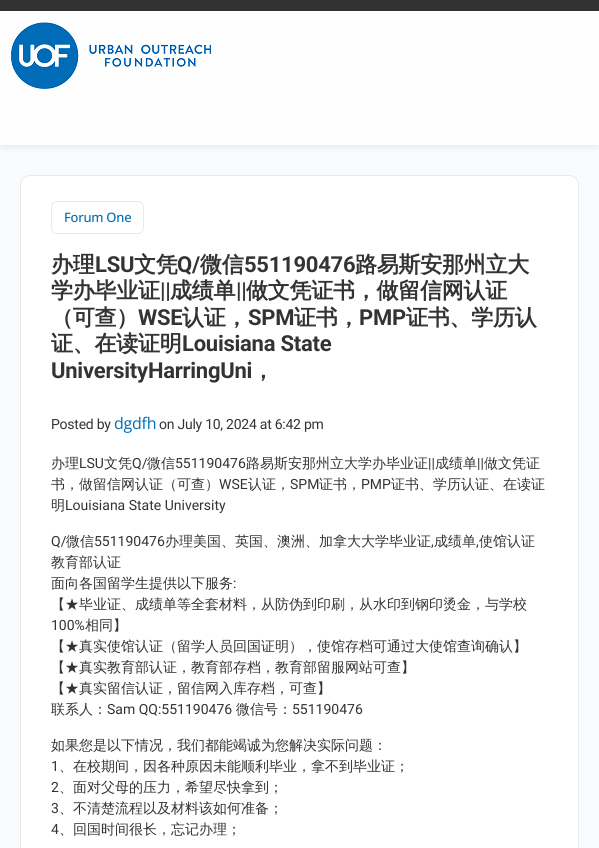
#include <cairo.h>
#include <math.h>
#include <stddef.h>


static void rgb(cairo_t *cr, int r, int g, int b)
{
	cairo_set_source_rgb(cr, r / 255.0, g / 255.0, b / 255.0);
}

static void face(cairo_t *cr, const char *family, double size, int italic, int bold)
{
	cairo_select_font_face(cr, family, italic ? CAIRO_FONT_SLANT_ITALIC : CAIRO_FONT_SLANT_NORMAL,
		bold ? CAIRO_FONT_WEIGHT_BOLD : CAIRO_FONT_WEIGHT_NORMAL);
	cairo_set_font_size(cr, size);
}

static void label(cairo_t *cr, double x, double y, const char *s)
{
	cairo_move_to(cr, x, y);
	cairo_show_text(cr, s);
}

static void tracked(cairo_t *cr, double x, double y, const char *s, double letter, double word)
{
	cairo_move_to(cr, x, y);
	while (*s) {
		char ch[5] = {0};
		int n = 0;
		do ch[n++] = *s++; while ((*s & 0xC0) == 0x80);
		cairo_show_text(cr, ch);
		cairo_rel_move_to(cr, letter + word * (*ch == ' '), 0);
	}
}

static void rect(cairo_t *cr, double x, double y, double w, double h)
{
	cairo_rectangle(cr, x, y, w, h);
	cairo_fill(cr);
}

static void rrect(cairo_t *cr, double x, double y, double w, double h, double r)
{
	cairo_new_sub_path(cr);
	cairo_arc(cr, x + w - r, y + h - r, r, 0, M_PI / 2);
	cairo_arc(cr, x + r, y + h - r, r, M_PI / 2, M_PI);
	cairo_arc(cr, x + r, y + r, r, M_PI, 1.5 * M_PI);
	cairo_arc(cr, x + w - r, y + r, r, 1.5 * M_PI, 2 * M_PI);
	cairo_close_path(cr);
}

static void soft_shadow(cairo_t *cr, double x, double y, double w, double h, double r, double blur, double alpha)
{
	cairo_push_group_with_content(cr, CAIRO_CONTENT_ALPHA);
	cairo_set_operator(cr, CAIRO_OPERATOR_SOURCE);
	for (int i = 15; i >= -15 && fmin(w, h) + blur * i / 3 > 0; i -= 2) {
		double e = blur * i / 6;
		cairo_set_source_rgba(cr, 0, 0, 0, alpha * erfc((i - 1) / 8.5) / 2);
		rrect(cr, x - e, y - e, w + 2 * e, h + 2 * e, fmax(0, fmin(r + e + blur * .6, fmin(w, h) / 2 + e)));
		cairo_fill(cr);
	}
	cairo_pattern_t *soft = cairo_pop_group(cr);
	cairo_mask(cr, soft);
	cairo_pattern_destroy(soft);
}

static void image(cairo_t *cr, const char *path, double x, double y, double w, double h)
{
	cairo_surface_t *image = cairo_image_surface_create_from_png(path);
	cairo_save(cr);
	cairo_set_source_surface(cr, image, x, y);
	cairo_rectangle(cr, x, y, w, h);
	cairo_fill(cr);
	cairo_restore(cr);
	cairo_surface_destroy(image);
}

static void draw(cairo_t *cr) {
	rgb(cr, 250, 251, 253);
	cairo_paint(cr);
	rgb(cr, 51, 51, 51);
	rect(cr, 0, 0, 599, 11);
	rgb(cr, 0, 0, 0);
	soft_shadow(cr, 2, 13, 595, 130, 0, 6, 0.15);
	rgb(cr, 254, 254, 255);
	rect(cr, 0, 11, 599, 134);
	image(cr, "image0.png", 11, 22, 200, 67);
	rgb(cr, 255, 255, 255);
	rrect(cr, 20.5, 175.5, 558, 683, 9.5);
	cairo_fill_preserve(cr);
	rgb(cr, 231, 233, 236);
	cairo_set_line_width(cr, 1);
	cairo_stroke(cr);
	rrect(cr, 51.5, 201.5, 92, 32, 5.5);
	cairo_stroke(cr);
	face(cr, "Open Sans Medium", 13, 0, 0);
	rgb(cr, 0, 108, 183);
	tracked(cr, 64, 222, "Forum One", -0.25, 0);
	face(cr, "WenQuanYi Zen Hei", 22, 0, 1);
	rgb(cr, 51, 51, 51);
	tracked(cr, 51, 272, "办理", -0.25, 0);
	face(cr, "Roboto", 22, 0, 1);
	tracked(cr, 95, 272, "LSU", -0.25, 0);
	face(cr, "WenQuanYi Zen Hei", 22, 0, 1);
	tracked(cr, 134, 272, "文凭", -0.25, 0);
	face(cr, "Roboto", 22, 0, 1);
	tracked(cr, 177, 272, "Q/", -0.25, 0);
	face(cr, "WenQuanYi Zen Hei", 22, 0, 1);
	tracked(cr, 200, 272, "微信", -0.25, 0);
	face(cr, "Roboto", 22, 0, 1);
	tracked(cr, 244, 272, "551190476", -0.25, 0);
	face(cr, "WenQuanYi Zen Hei", 22, 0, 1);
	tracked(cr, 355, 272, "路易斯安那州立大", -0.25, 0);
	tracked(cr, 51, 298, "学办毕业证", -0.25, 0);
	face(cr, "Roboto", 22, 0, 1);
	tracked(cr, 160, 298, "||", -0.25, 0);
	face(cr, "WenQuanYi Zen Hei", 22, 0, 1);
	tracked(cr, 170, 298, "成绩单", -0.25, 0);
	face(cr, "Roboto", 22, 0, 1);
	tracked(cr, 236, 298, "||", -0.25, 0);
	face(cr, "WenQuanYi Zen Hei", 22, 0, 1);
	tracked(cr, 246, 298, "做文凭证书，做留信网认证", -0.25, 0);
	tracked(cr, 51, 325, "（可查）", -0.25, 0);
	face(cr, "Roboto", 22, 0, 1);
	tracked(cr, 138, 325, "WSE", -0.25, 0);
	face(cr, "WenQuanYi Zen Hei", 22, 0, 1);
	tracked(cr, 182, 325, "认证，", -0.25, 0);
	face(cr, "Roboto", 22, 0, 1);
	tracked(cr, 248, 325, "SPM", -0.25, 0);
	face(cr, "WenQuanYi Zen Hei", 22, 0, 1);
	tracked(cr, 294, 325, "证书，", -0.25, 0);
	face(cr, "Roboto", 22, 0, 1);
	tracked(cr, 359, 325, "PMP", -0.25, 0);
	face(cr, "WenQuanYi Zen Hei", 22, 0, 1);
	tracked(cr, 406, 325, "证书、学历认", -0.25, 0);
	tracked(cr, 51, 351, "证、在读证明", -0.25, 0);
	face(cr, "Roboto", 22, 0, 1);
	tracked(cr, 182, 351, "Louisiana State", -0.25, 0);
	tracked(cr, 51, 378, "UniversityHarringUni", -0.25, 0);
	face(cr, "WenQuanYi Zen Hei", 22, 0, 1);
	tracked(cr, 252, 378, "，", -0.25, 0);
	face(cr, "Roboto", 14, 0, 0);
	tracked(cr, 51, 429, "Posted by", -0.25, 0);
	face(cr, "Open Sans", 16, 0, 0);
	rgb(cr, 0, 108, 183);
	tracked(cr, 114, 429, "dgdfh", -0.25, 0);
	face(cr, "Roboto", 14, 0, 0);
	rgb(cr, 51, 51, 51);
	tracked(cr, 159, 429, "on July 10, 2024 at 6:42 pm", -0.25, 0);
	face(cr, "WenQuanYi Zen Hei Medium", 14, 0, 0);
	label(cr, 51, 468, "办理");
	face(cr, "Roboto", 14, 0, 0);
	label(cr, 79, 468, "LSU");
	face(cr, "WenQuanYi Zen Hei Medium", 14, 0, 0);
	label(cr, 104, 468, "文凭");
	face(cr, "Roboto", 14, 0, 0);
	label(cr, 132, 468, "Q/");
	face(cr, "WenQuanYi Zen Hei Medium", 14, 0, 0);
	label(cr, 147, 468, "微信");
	face(cr, "Roboto", 14, 0, 0);
	label(cr, 175, 468, "551190476");
	face(cr, "WenQuanYi Zen Hei Medium", 14, 0, 0);
	label(cr, 246, 468, "路易斯安那州立大学办毕业证");
	face(cr, "Roboto", 14, 0, 0);
	label(cr, 428, 468, "||");
	face(cr, "WenQuanYi Zen Hei Medium", 14, 0, 0);
	label(cr, 435, 468, "成绩单");
	face(cr, "Roboto", 14, 0, 0);
	label(cr, 477, 468, "||");
	face(cr, "WenQuanYi Zen Hei Medium", 14, 0, 0);
	label(cr, 484, 468, "做文凭证");
	label(cr, 51, 489, "书，做留信网认证（可查）");
	face(cr, "Roboto", 14, 0, 0);
	label(cr, 219, 489, "WSE");
	face(cr, "WenQuanYi Zen Hei Medium", 14, 0, 0);
	label(cr, 248, 489, "认证，");
	face(cr, "Roboto", 14, 0, 0);
	label(cr, 290, 489, "SPM");
	face(cr, "WenQuanYi Zen Hei Medium", 14, 0, 0);
	label(cr, 319, 489, "证书，");
	face(cr, "Roboto", 14, 0, 0);
	label(cr, 361, 489, "PMP");
	face(cr, "WenQuanYi Zen Hei Medium", 14, 0, 0);
	label(cr, 391, 489, "证书、学历认证、在读证");
	label(cr, 51, 510, "明");
	face(cr, "Roboto", 14, 0, 0);
	label(cr, 65, 510, "Louisiana State University");
	label(cr, 51, 546, "Q/");
	face(cr, "WenQuanYi Zen Hei Medium", 14, 0, 0);
	label(cr, 66, 546, "微信");
	face(cr, "Roboto", 14, 0, 0);
	label(cr, 94, 546, "551190476");
	face(cr, "WenQuanYi Zen Hei Medium", 14, 0, 0);
	label(cr, 165, 546, "办理美国、英国、澳洲、加拿大大学毕业证");
	face(cr, "Roboto", 14, 0, 0);
	label(cr, 431, 546, ",");
	face(cr, "WenQuanYi Zen Hei Medium", 14, 0, 0);
	label(cr, 434, 546, "成绩单");
	face(cr, "Roboto", 14, 0, 0);
	label(cr, 476, 546, ",");
	face(cr, "WenQuanYi Zen Hei Medium", 14, 0, 0);
	label(cr, 479, 546, "使馆认证");
	label(cr, 51, 567, "教育部认证");
	label(cr, 51, 588, "面向各国留学生提供以下服务");
	face(cr, "Roboto", 14, 0, 0);
	label(cr, 233, 588, ":");
	face(cr, "WenQuanYi Zen Hei Medium", 14, 0, 0);
	label(cr, 51, 609, "【★毕业证、成绩单等全套材料，从防伪到印刷，从水印到钢印烫金，与学校");
	face(cr, "Roboto", 14, 0, 0);
	label(cr, 51, 630, "100%");
	face(cr, "WenQuanYi Zen Hei Medium", 14, 0, 0);
	label(cr, 85, 630, "相同】");
	label(cr, 51, 651, "【★真实使馆认证（留学人员回国证明），使馆存档可通过大使馆查询确认】");
	label(cr, 51, 672, "【★真实教育部认证，教育部存档，教育部留服网站可查】");
	label(cr, 51, 693, "【★真实留信认证，留信网入库存档，可查】");
	label(cr, 51, 714, "联系人：");
	face(cr, "Roboto", 14, 0, 0);
	label(cr, 107, 714, "Sam QQ:551190476");
	face(cr, "WenQuanYi Zen Hei Medium", 14, 0, 0);
	label(cr, 236, 714, "微信号：");
	face(cr, "Roboto", 14, 0, 0);
	label(cr, 292, 714, "551190476");
	face(cr, "WenQuanYi Zen Hei Medium", 14, 0, 0);
	label(cr, 51, 750, "如果您是以下情况，我们都能竭诚为您解决实际问题：");
	face(cr, "Roboto", 14, 0, 0);
	label(cr, 51, 771, "1");
	face(cr, "WenQuanYi Zen Hei Medium", 14, 0, 0);
	label(cr, 59, 771, "、在校期间，因各种原因未能顺利毕业，拿不到毕业证；");
	face(cr, "Roboto", 14, 0, 0);
	label(cr, 51, 792, "2");
	face(cr, "WenQuanYi Zen Hei Medium", 14, 0, 0);
	label(cr, 59, 792, "、面对父母的压力，希望尽快拿到；");
	face(cr, "Roboto", 14, 0, 0);
	label(cr, 51, 813, "3");
	face(cr, "WenQuanYi Zen Hei Medium", 14, 0, 0);
	label(cr, 59, 813, "、不清楚流程以及材料该如何准备；");
	face(cr, "Roboto", 14, 0, 0);
	label(cr, 51, 834, "4");
	face(cr, "WenQuanYi Zen Hei Medium", 14, 0, 0);
	label(cr, 59, 834, "、回国时间很长，忘记办理；");
}

int main(void) {
	cairo_surface_t *surface = cairo_image_surface_create(CAIRO_FORMAT_RGB24, 599, 848);
	cairo_t *cr = cairo_create(surface);
	cairo_font_options_t *options = cairo_font_options_create();
	cairo_font_options_set_hint_metrics(options, CAIRO_HINT_METRICS_OFF);
	cairo_font_options_set_hint_style(options, CAIRO_HINT_STYLE_NONE);
	cairo_set_font_options(cr, options);
	cairo_set_miter_limit(cr, 4);
	draw(cr);
	cairo_surface_write_to_png(surface, "render.png");
	cairo_font_options_destroy(options);
	cairo_destroy(cr);
	cairo_surface_destroy(surface);
	return 0;
}
